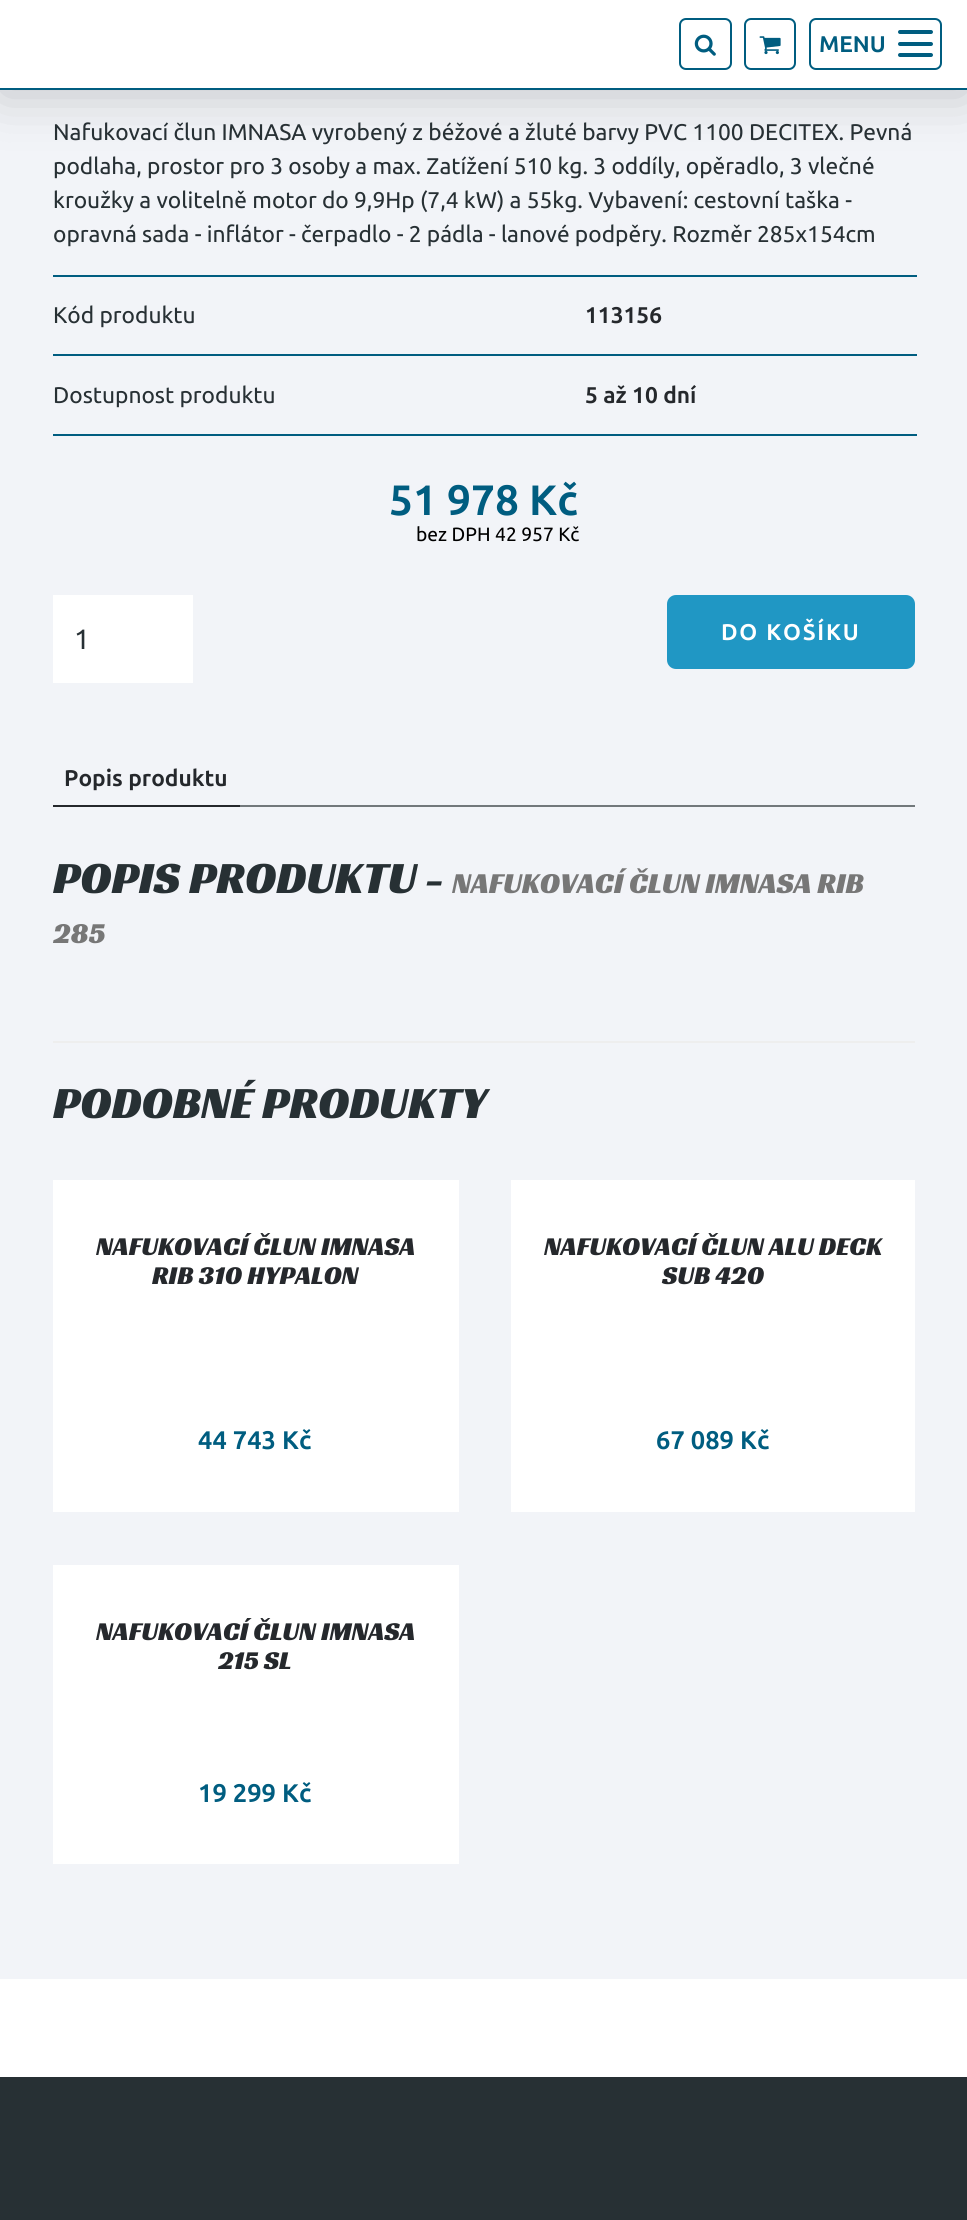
#include <cairo.h>
#include <math.h>
#include <stddef.h>


static void rgb(cairo_t *cr, int r, int g, int b)
{
	cairo_set_source_rgb(cr, r / 255.0, g / 255.0, b / 255.0);
}

static void face(cairo_t *cr, const char *family, double size, int italic, int bold)
{
	cairo_select_font_face(cr, family, italic ? CAIRO_FONT_SLANT_ITALIC : CAIRO_FONT_SLANT_NORMAL,
		bold ? CAIRO_FONT_WEIGHT_BOLD : CAIRO_FONT_WEIGHT_NORMAL);
	cairo_set_font_size(cr, size);
}

static void label(cairo_t *cr, double x, double y, const char *s)
{
	cairo_move_to(cr, x, y);
	cairo_show_text(cr, s);
}

static void tracked(cairo_t *cr, double x, double y, const char *s, double letter, double word)
{
	cairo_move_to(cr, x, y);
	while (*s) {
		char ch[5] = {0};
		int n = 0;
		do ch[n++] = *s++; while ((*s & 0xC0) == 0x80);
		cairo_show_text(cr, ch);
		cairo_rel_move_to(cr, letter + word * (*ch == ' '), 0);
	}
}

static void rect(cairo_t *cr, double x, double y, double w, double h)
{
	cairo_rectangle(cr, x, y, w, h);
	cairo_fill(cr);
}

static void rrect(cairo_t *cr, double x, double y, double w, double h, double r)
{
	cairo_new_sub_path(cr);
	cairo_arc(cr, x + w - r, y + h - r, r, 0, M_PI / 2);
	cairo_arc(cr, x + r, y + h - r, r, M_PI / 2, M_PI);
	cairo_arc(cr, x + r, y + r, r, M_PI, 1.5 * M_PI);
	cairo_arc(cr, x + w - r, y + r, r, 1.5 * M_PI, 2 * M_PI);
	cairo_close_path(cr);
}

static void soft_shadow(cairo_t *cr, double x, double y, double w, double h, double r, double blur, double alpha)
{
	cairo_push_group_with_content(cr, CAIRO_CONTENT_ALPHA);
	cairo_set_operator(cr, CAIRO_OPERATOR_SOURCE);
	for (int i = 15; i >= -15 && fmin(w, h) + blur * i / 3 > 0; i -= 2) {
		double e = blur * i / 6;
		cairo_set_source_rgba(cr, 0, 0, 0, alpha * erfc((i - 1) / 8.5) / 2);
		rrect(cr, x - e, y - e, w + 2 * e, h + 2 * e, fmax(0, fmin(r + e + blur * .6, fmin(w, h) / 2 + e)));
		cairo_fill(cr);
	}
	cairo_pattern_t *soft = cairo_pop_group(cr);
	cairo_mask(cr, soft);
	cairo_pattern_destroy(soft);
}

static void image(cairo_t *cr, const char *path, double x, double y, double w, double h)
{
	cairo_surface_t *image = cairo_image_surface_create_from_png(path);
	cairo_save(cr);
	cairo_set_source_surface(cr, image, x, y);
	cairo_rectangle(cr, x, y, w, h);
	cairo_fill(cr);
	cairo_restore(cr);
	cairo_surface_destroy(image);
}

static void draw(cairo_t *cr) {
	rgb(cr, 255, 255, 255);
	cairo_paint(cr);
	rgb(cr, 242, 244, 248);
	rect(cr, 0, 90, 967, 1889);
	rgb(cr, 0, 0, 0);
	soft_shadow(cr, 0, 5, 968, 90, 0, 26, 0.2);
	rgb(cr, 255, 255, 255);
	rect(cr, 0, 0, 967, 88);
	rgb(cr, 0, 93, 128);
	rect(cr, 0, 88, 967, 2);
	rrect(cr, 680, 19, 51, 50, 6);
	cairo_stroke(cr);
	image(cr, "image0.png", 694, 34, 22, 22);
	rrect(cr, 745, 19, 50, 50, 6);
	cairo_stroke(cr);
	image(cr, "image1.png", 759, 36, 22, 19);
	rrect(cr, 810, 19, 131, 50, 6);
	cairo_stroke(cr);
	rrect(cr, 898, 30, 35, 4, 2);
	cairo_fill(cr);
	face(cr, "Ubuntu", 22.75, 0, 1);
	label(cr, 819, 52, "MENU");
	rrect(cr, 898, 42, 35, 4, 2);
	cairo_fill(cr);
	rrect(cr, 898, 53, 35, 4, 2);
	cairo_fill(cr);
	face(cr, "Ubuntu", 22.75, 0, 0);
	rgb(cr, 39, 48, 52);
	label(cr, 53, 140, "Nafukovací člun IMNASA vyrobený z béžové a žluté barvy PVC 1100 DECITEX. Pevná");
	label(cr, 53, 174, "podlaha, prostor pro 3 osoby a max. Zatížení 510 kg. 3 oddíly, opěradlo, 3 vlečné");
	label(cr, 53, 208, "kroužky a volitelně motor do 9,9Hp (7,4 kW) a 55kg. Vybavení: cestovní taška -");
	label(cr, 53, 242, "opravná sada - inflátor - čerpadlo - 2 pádla - lanové podpěry. Rozměr 285x154cm");
	rgb(cr, 0, 93, 128);
	rect(cr, 53, 275, 864, 2);
	rect(cr, 53, 354, 864, 2);
	rgb(cr, 39, 48, 52);
	label(cr, 53, 323, "Kód produktu");
	face(cr, "Ubuntu", 22.75, 0, 1);
	rgb(cr, 37, 40, 44);
	label(cr, 585, 323, "113156");
	rgb(cr, 0, 93, 128);
	rect(cr, 53, 434, 864, 2);
	face(cr, "Ubuntu", 22.75, 0, 0);
	rgb(cr, 39, 48, 52);
	label(cr, 53, 403, "Dostupnost produktu");
	face(cr, "Ubuntu", 22.75, 0, 1);
	rgb(cr, 37, 40, 44);
	label(cr, 585, 403, "5 až 10 dní");
	face(cr, "Ubuntu", 42.5, 0, 1);
	rgb(cr, 0, 93, 128);
	label(cr, 389, 515, "51 978 Kč");
	face(cr, "Ubuntu", 19.25, 0, 0);
	rgb(cr, 0, 0, 0);
	label(cr, 416, 541, "bez DPH 42 957 Kč");
	rgb(cr, 255, 255, 255);
	rect(cr, 53, 595, 140, 88);
	face(cr, "Ubuntu", 28, 0, 0);
	rgb(cr, 39, 48, 52);
	label(cr, 74, 649, "1");
	rgb(cr, 32, 151, 196);
	rrect(cr, 669, 597, 244, 70, 7);
	cairo_fill_preserve(cr);
	cairo_set_line_width(cr, 4);
	cairo_stroke(cr);
	face(cr, "Ubuntu", 22.75, 0, 1);
	rgb(cr, 255, 255, 255);
	tracked(cr, 721, 640, "DO KOŠÍKU", 1.75, 0);
	rgb(cr, 114, 120, 123);
	rect(cr, 240, 805, 675, 2);
	rgb(cr, 37, 40, 44);
	rect(cr, 53, 805, 187, 2);
	label(cr, 64, 786, "Popis produktu");
	face(cr, "Racing Sans One", 45.5, 0, 0);
	rgb(cr, 39, 48, 52);
	label(cr, 53, 893, "POPIS PRODUKTU -");
	face(cr, "Racing Sans One", 29.5, 0, 0);
	rgb(cr, 119, 119, 119);
	label(cr, 452, 893, "NAFUKOVACÍ ČLUN IMNASA RIB");
	label(cr, 53, 943, "285");
	rgb(cr, 238, 238, 238);
	rect(cr, 53, 1041, 862, 2);
	face(cr, "Racing Sans One", 45.5, 0, 0);
	rgb(cr, 39, 48, 52);
	label(cr, 53, 1118, "PODOBNÉ PRODUKTY");
	rgb(cr, 255, 255, 255);
	rect(cr, 53, 1180, 406, 332);
	face(cr, "Racing Sans One", 26.2, 0, 0);
	rgb(cr, 37, 40, 44);
	label(cr, 96, 1255, "NAFUKOVACÍ ČLUN IMNASA");
	label(cr, 152, 1284, "RIB 310 HYPALON");
	face(cr, "Ubuntu", 25.5, 0, 1);
	rgb(cr, 0, 93, 128);
	label(cr, 198, 1449, "44 743 Kč");
	rgb(cr, 255, 255, 255);
	rect(cr, 511, 1180, 404, 332);
	face(cr, "Racing Sans One", 26.2, 0, 0);
	rgb(cr, 37, 40, 44);
	label(cr, 544, 1255, "NAFUKOVACÍ ČLUN ALU DECK");
	label(cr, 662, 1284, "SUB 420");
	face(cr, "Ubuntu", 25.5, 0, 1);
	rgb(cr, 0, 93, 128);
	label(cr, 656, 1449, "67 089 Kč");
	rgb(cr, 255, 255, 255);
	rect(cr, 53, 1565, 406, 299);
	face(cr, "Racing Sans One", 26.2, 0, 0);
	rgb(cr, 37, 40, 44);
	label(cr, 96, 1640, "NAFUKOVACÍ ČLUN IMNASA");
	label(cr, 218, 1669, "215 SL");
	face(cr, "Ubuntu", 25.5, 0, 1);
	rgb(cr, 0, 93, 128);
	label(cr, 198, 1802, "19 299 Kč");
	rgb(cr, 39, 48, 52);
	rect(cr, 0, 2077, 967, 143);
}

int main(void) {
	cairo_surface_t *surface = cairo_image_surface_create(CAIRO_FORMAT_RGB24, 967, 2220);
	cairo_t *cr = cairo_create(surface);
	cairo_font_options_t *options = cairo_font_options_create();
	cairo_font_options_set_hint_metrics(options, CAIRO_HINT_METRICS_OFF);
	cairo_font_options_set_hint_style(options, CAIRO_HINT_STYLE_NONE);
	cairo_set_font_options(cr, options);
	cairo_set_miter_limit(cr, 4);
	draw(cr);
	cairo_surface_write_to_png(surface, "render.png");
	cairo_font_options_destroy(options);
	cairo_destroy(cr);
	cairo_surface_destroy(surface);
	return 0;
}
